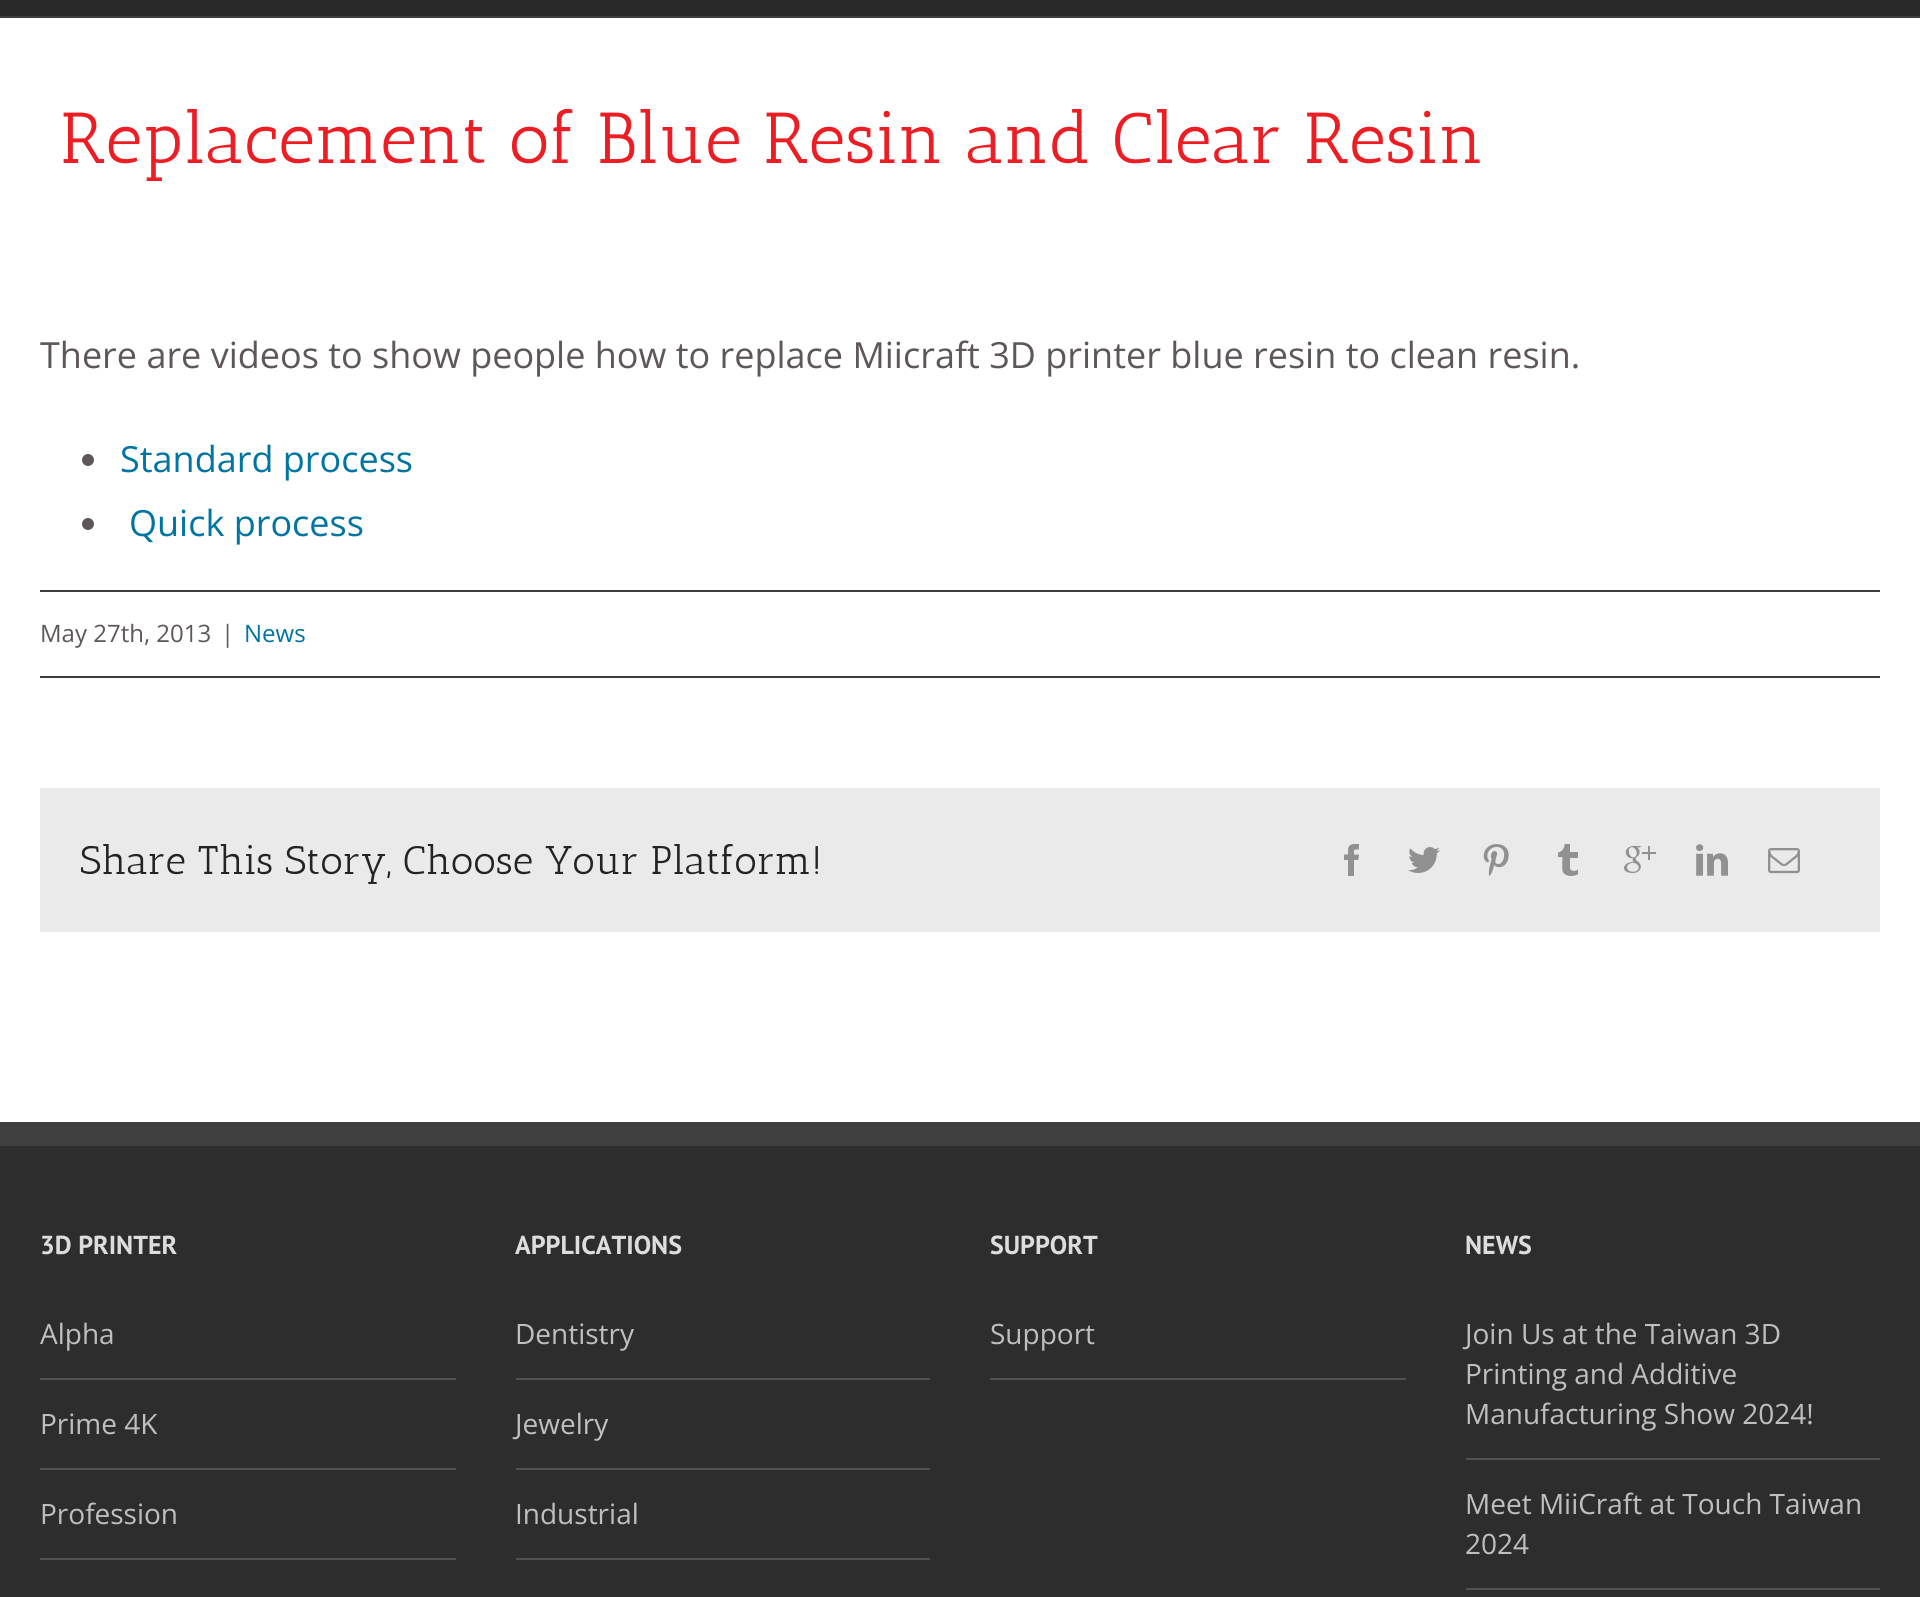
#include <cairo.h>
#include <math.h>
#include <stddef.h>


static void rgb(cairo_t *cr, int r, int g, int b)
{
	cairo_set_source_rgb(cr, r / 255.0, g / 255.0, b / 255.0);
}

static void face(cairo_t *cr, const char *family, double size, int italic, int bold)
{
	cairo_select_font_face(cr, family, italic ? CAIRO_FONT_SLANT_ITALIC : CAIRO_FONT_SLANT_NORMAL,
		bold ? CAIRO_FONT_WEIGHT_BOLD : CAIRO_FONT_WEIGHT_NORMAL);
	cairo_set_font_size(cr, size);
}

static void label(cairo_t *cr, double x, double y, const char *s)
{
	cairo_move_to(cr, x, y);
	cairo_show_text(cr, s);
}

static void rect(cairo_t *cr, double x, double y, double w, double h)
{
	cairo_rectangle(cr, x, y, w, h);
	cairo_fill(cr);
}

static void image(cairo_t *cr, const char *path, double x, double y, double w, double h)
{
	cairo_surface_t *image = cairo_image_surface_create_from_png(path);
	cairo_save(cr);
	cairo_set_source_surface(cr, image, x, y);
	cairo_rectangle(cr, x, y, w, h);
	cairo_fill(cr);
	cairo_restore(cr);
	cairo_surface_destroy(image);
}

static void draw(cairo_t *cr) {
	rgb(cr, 255, 255, 255);
	cairo_paint(cr);
	rgb(cr, 41, 41, 42);
	rect(cr, 0, 0, 1920, 16);
	rgb(cr, 62, 62, 62);
	rect(cr, 0, 16, 1920, 2);
	face(cr, "Antic Slab", 72, 0, 0);
	rgb(cr, 236, 30, 36);
	label(cr, 60, 163, "Replacement of Blue Resin and Clear Resin");
	face(cr, "Open Sans", 36, 0, 0);
	rgb(cr, 94, 87, 87);
	label(cr, 40, 368, "There are videos to show people how to replace Miicraft 3D printer blue resin to clean resin.");
	cairo_new_path(cr);
	cairo_arc(cr, 88, 460, 6, 0, 2 * M_PI);
	cairo_fill(cr);
	rgb(cr, 0, 116, 162);
	label(cr, 120, 472, "Standard process");
	rgb(cr, 94, 87, 87);
	cairo_new_path(cr);
	cairo_arc(cr, 88, 524, 6, 0, 2 * M_PI);
	cairo_fill(cr);
	rgb(cr, 0, 116, 162);
	label(cr, 129, 536, "Quick process");
	rgb(cr, 62, 62, 62);
	rect(cr, 40, 590, 1840, 2);
	rect(cr, 40, 676, 1840, 2);
	face(cr, "Open Sans", 24, 0, 0);
	rgb(cr, 94, 87, 87);
	label(cr, 40, 642, "May 27th, 2013");
	label(cr, 221, 642, "|");
	rgb(cr, 0, 116, 162);
	label(cr, 244, 642, "News");
	rgb(cr, 234, 234, 234);
	rect(cr, 40, 788, 1840, 144);
	face(cr, "Antic Slab", 40, 0, 0);
	rgb(cr, 35, 35, 35);
	label(cr, 80, 874, "Share This Story, Choose Your Platform!");
	image(cr, "image0.png", 1344, 844, 15, 32);
	image(cr, "image1.png", 1408, 847, 32, 26);
	image(cr, "image2.png", 1483, 844, 26, 32);
	image(cr, "image3.png", 1558, 844, 20, 32);
	image(cr, "image4.png", 1624, 846, 32, 28);
	image(cr, "image5.png", 1696, 844, 32, 32);
	image(cr, "image6.png", 1768, 848, 32, 26);
	rgb(cr, 45, 45, 45);
	rect(cr, 0, 1146, 1920, 451);
	rgb(cr, 64, 63, 63);
	rect(cr, 0, 1122, 1920, 24);
	face(cr, "PT Sans", 26, 0, 1);
	rgb(cr, 221, 221, 221);
	label(cr, 40, 1254, "3D PRINTER");
	rgb(cr, 80, 81, 82);
	rect(cr, 40, 1378, 416, 2);
	face(cr, "Open Sans", 28, 0, 0);
	rgb(cr, 191, 191, 191);
	label(cr, 40, 1344, "Alpha");
	rgb(cr, 80, 81, 82);
	rect(cr, 40, 1468, 416, 2);
	rgb(cr, 191, 191, 191);
	label(cr, 40, 1434, "Prime 4K");
	rgb(cr, 80, 81, 82);
	rect(cr, 40, 1558, 416, 2);
	rgb(cr, 191, 191, 191);
	label(cr, 40, 1524, "Profession");
	face(cr, "PT Sans", 26, 0, 1);
	rgb(cr, 221, 221, 221);
	label(cr, 515, 1254, "APPLICATIONS");
	rgb(cr, 80, 81, 82);
	rect(cr, 516, 1378, 414, 2);
	face(cr, "Open Sans", 28, 0, 0);
	rgb(cr, 191, 191, 191);
	label(cr, 515, 1344, "Dentistry");
	rgb(cr, 80, 81, 82);
	rect(cr, 516, 1468, 414, 2);
	rgb(cr, 191, 191, 191);
	label(cr, 515, 1434, "Jewelry");
	rgb(cr, 80, 81, 82);
	rect(cr, 516, 1558, 414, 2);
	rgb(cr, 191, 191, 191);
	label(cr, 515, 1524, "Industrial");
	face(cr, "PT Sans", 26, 0, 1);
	rgb(cr, 221, 221, 221);
	label(cr, 990, 1254, "SUPPORT");
	rgb(cr, 80, 81, 82);
	rect(cr, 990, 1378, 416, 2);
	face(cr, "Open Sans", 28, 0, 0);
	rgb(cr, 191, 191, 191);
	label(cr, 990, 1344, "Support");
	face(cr, "PT Sans", 26, 0, 1);
	rgb(cr, 221, 221, 221);
	label(cr, 1465, 1254, "NEWS");
	rgb(cr, 80, 81, 82);
	rect(cr, 1466, 1458, 414, 2);
	face(cr, "Open Sans", 28, 0, 0);
	rgb(cr, 191, 191, 191);
	label(cr, 1465, 1344, "Join Us at the Taiwan 3D");
	label(cr, 1465, 1384, "Printing and Additive");
	label(cr, 1465, 1424, "Manufacturing Show 2024!");
	rgb(cr, 80, 81, 82);
	rect(cr, 1466, 1588, 414, 2);
	rgb(cr, 191, 191, 191);
	label(cr, 1465, 1514, "Meet MiiCraft at Touch Taiwan");
	label(cr, 1465, 1554, "2024");
}

int main(void) {
	cairo_surface_t *surface = cairo_image_surface_create(CAIRO_FORMAT_RGB24, 1920, 1597);
	cairo_t *cr = cairo_create(surface);
	cairo_font_options_t *options = cairo_font_options_create();
	cairo_font_options_set_hint_metrics(options, CAIRO_HINT_METRICS_OFF);
	cairo_font_options_set_hint_style(options, CAIRO_HINT_STYLE_NONE);
	cairo_set_font_options(cr, options);
	cairo_set_miter_limit(cr, 4);
	draw(cr);
	cairo_surface_write_to_png(surface, "render.png");
	cairo_font_options_destroy(options);
	cairo_destroy(cr);
	cairo_surface_destroy(surface);
	return 0;
}
